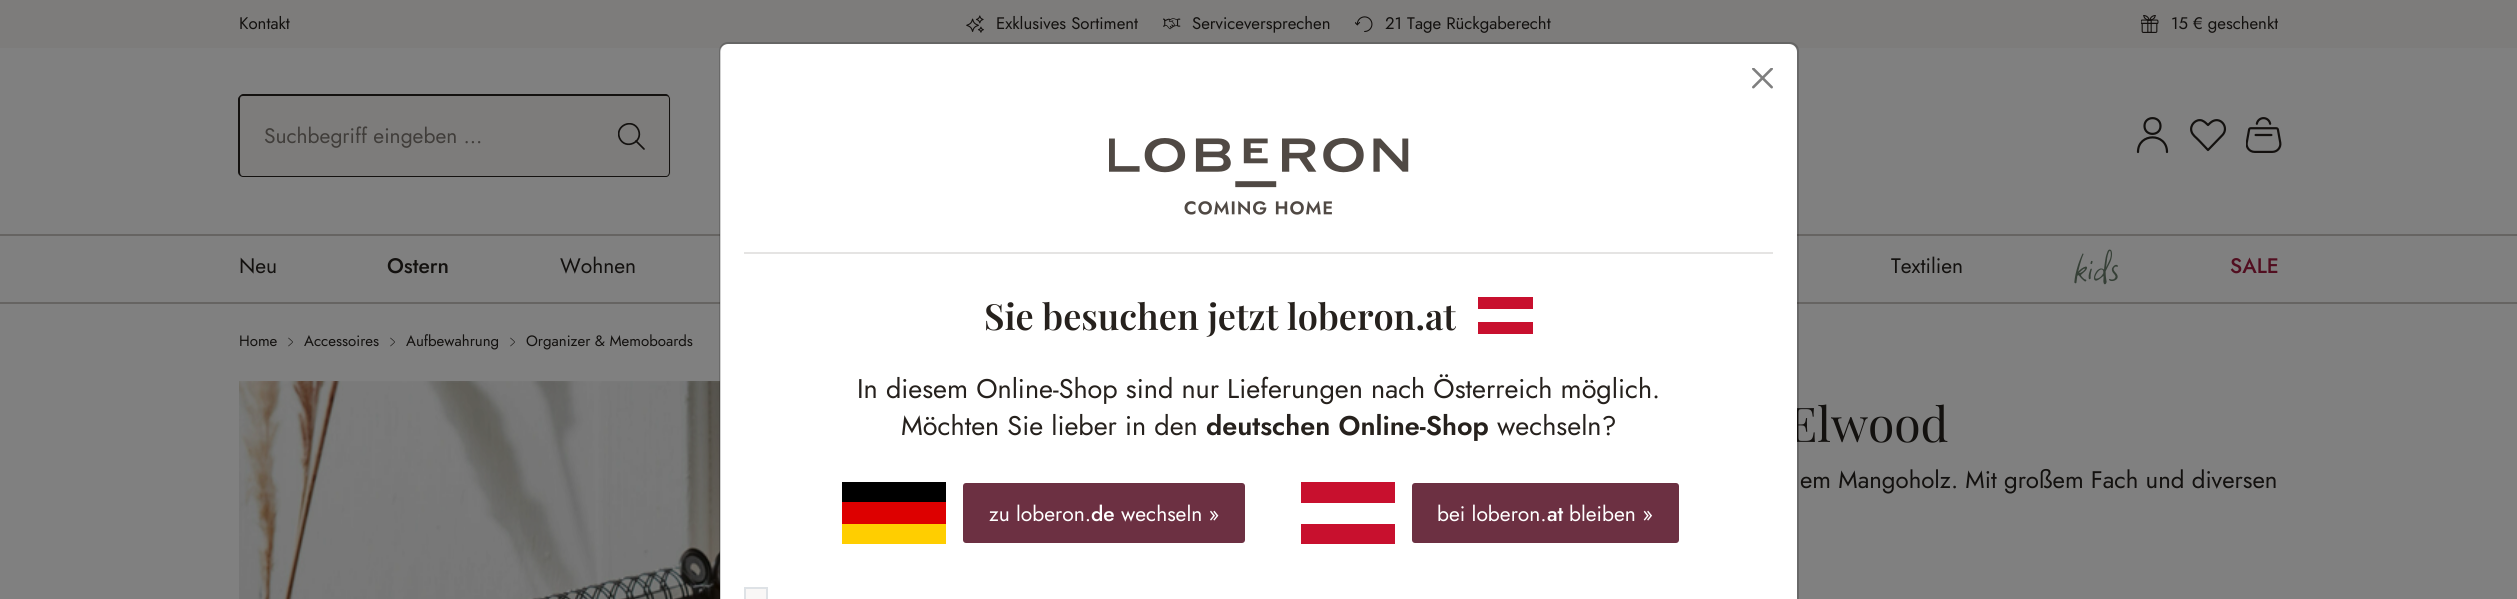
#include <cairo.h>
#include <math.h>
#include <stddef.h>


static void rgb(cairo_t *cr, int r, int g, int b)
{
	cairo_set_source_rgb(cr, r / 255.0, g / 255.0, b / 255.0);
}

static void face(cairo_t *cr, const char *family, double size, int italic, int bold)
{
	cairo_select_font_face(cr, family, italic ? CAIRO_FONT_SLANT_ITALIC : CAIRO_FONT_SLANT_NORMAL,
		bold ? CAIRO_FONT_WEIGHT_BOLD : CAIRO_FONT_WEIGHT_NORMAL);
	cairo_set_font_size(cr, size);
}

static void label(cairo_t *cr, double x, double y, const char *s)
{
	cairo_move_to(cr, x, y);
	cairo_show_text(cr, s);
}

static void rect(cairo_t *cr, double x, double y, double w, double h)
{
	cairo_rectangle(cr, x, y, w, h);
	cairo_fill(cr);
}

static void rrect(cairo_t *cr, double x, double y, double w, double h, double r)
{
	cairo_new_sub_path(cr);
	cairo_arc(cr, x + w - r, y + h - r, r, 0, M_PI / 2);
	cairo_arc(cr, x + r, y + h - r, r, M_PI / 2, M_PI);
	cairo_arc(cr, x + r, y + r, r, M_PI, 1.5 * M_PI);
	cairo_arc(cr, x + w - r, y + r, r, 1.5 * M_PI, 2 * M_PI);
	cairo_close_path(cr);
}

static void image(cairo_t *cr, const char *path, double x, double y, double w, double h)
{
	cairo_surface_t *image = cairo_image_surface_create_from_png(path);
	cairo_save(cr);
	cairo_set_source_surface(cr, image, x, y);
	cairo_rectangle(cr, x, y, w, h);
	cairo_fill(cr);
	cairo_restore(cr);
	cairo_surface_destroy(image);
}

static void draw(cairo_t *cr) {
	rgb(cr, 128, 128, 128);
	cairo_paint(cr);
	rgb(cr, 125, 124, 123);
	rect(cr, 0, 0, 2517, 48);
	face(cr, "Jost", 16.75, 0, 0);
	rgb(cr, 19, 17, 15);
	label(cr, 239, 29, "Kontakt");
	image(cr, "image0.png", 966, 15, 18, 18);
	label(cr, 996, 29, "Exklusives Sortiment");
	image(cr, "image1.png", 1163, 18, 18, 12);
	label(cr, 1192, 29, "Serviceversprechen");
	image(cr, "image2.png", 1355, 16, 18, 16);
	label(cr, 1385, 29, "21 Tage Rückgaberecht");
	image(cr, "image3.png", 2141, 15, 18, 18);
	label(cr, 2171, 29, "15 € geschenkt");
	rgb(cr, 125, 124, 123);
	cairo_new_path(cr);
	cairo_move_to(cr, 243, 96);
	cairo_line_to(cr, 596, 96);
	cairo_line_to(cr, 596, 176);
	cairo_line_to(cr, 243, 176);
	cairo_curve_to(cr, 241.5, 176, 240, 174.5, 240, 173);
	cairo_line_to(cr, 240, 99);
	cairo_curve_to(cr, 240, 97.5, 241.5, 96, 243, 96);
	cairo_close_path(cr);
	cairo_fill(cr);
	rgb(cr, 19, 17, 15);
	cairo_set_fill_rule(cr, CAIRO_FILL_RULE_EVEN_ODD);
	cairo_new_path(cr);
	cairo_move_to(cr, 243, 94);
	cairo_line_to(cr, 596, 94);
	cairo_line_to(cr, 596, 177);
	cairo_line_to(cr, 243, 177);
	cairo_curve_to(cr, 241, 177, 238, 175, 238, 172);
	cairo_line_to(cr, 238, 99);
	cairo_curve_to(cr, 238, 97, 241, 94, 243, 94);
	cairo_close_path(cr);
	cairo_move_to(cr, 243, 96);
	cairo_line_to(cr, 596, 96);
	cairo_line_to(cr, 596, 176);
	cairo_line_to(cr, 243, 176);
	cairo_curve_to(cr, 241, 176, 240, 174, 240, 172);
	cairo_line_to(cr, 240, 99);
	cairo_curve_to(cr, 240, 97, 241, 96, 243, 96);
	cairo_close_path(cr);
	cairo_fill(cr);
	face(cr, "Jost", 21, 0, 0);
	rgb(cr, 64, 61, 58);
	label(cr, 264, 143, "Suchbegriff eingeben ...");
	rgb(cr, 125, 124, 123);
	cairo_new_path(cr);
	cairo_move_to(cr, 594, 95);
	cairo_line_to(cr, 666, 95);
	cairo_curve_to(cr, 669, 95, 671, 97, 671, 100);
	cairo_line_to(cr, 671, 172);
	cairo_curve_to(cr, 671, 175, 669, 177, 666, 177);
	cairo_line_to(cr, 594, 177);
	cairo_close_path(cr);
	cairo_fill(cr);
	rgb(cr, 19, 17, 15);
	cairo_new_path(cr);
	cairo_move_to(cr, 594, 94);
	cairo_line_to(cr, 666, 94);
	cairo_curve_to(cr, 668, 94, 670, 97, 670, 99);
	cairo_line_to(cr, 670, 172);
	cairo_curve_to(cr, 670, 175, 668, 177, 666, 177);
	cairo_line_to(cr, 594, 177);
	cairo_close_path(cr);
	cairo_move_to(cr, 594, 96);
	cairo_line_to(cr, 666, 96);
	cairo_curve_to(cr, 668, 96, 669, 97, 669, 99);
	cairo_line_to(cr, 669, 172);
	cairo_curve_to(cr, 669, 174, 668, 176, 666, 176);
	cairo_line_to(cr, 594, 176);
	cairo_close_path(cr);
	cairo_fill(cr);
	cairo_save(cr);
	cairo_set_fill_rule(cr, CAIRO_FILL_RULE_WINDING);
	cairo_rectangle(cr, 618, 123, 27, 27);
	cairo_clip(cr);
	cairo_new_path(cr);
	cairo_move_to(cr, 619.5, 138);
	cairo_curve_to(cr, 625, 150.5, 643.5, 142.5, 638.5, 130);
	cairo_curve_to(cr, 633, 117.5, 614.5, 125.5, 619.5, 138);
	cairo_close_path(cr);
	cairo_set_line_width(cr, 1.7);
	cairo_set_line_cap(cr, CAIRO_LINE_CAP_ROUND);
	cairo_set_line_join(cr, CAIRO_LINE_JOIN_ROUND);
	cairo_stroke(cr);
	cairo_restore(cr);
	cairo_new_path(cr);
	cairo_move_to(cr, 636, 141);
	cairo_line_to(cr, 644, 149);
	cairo_set_line_width(cr, 1.7);
	cairo_set_line_cap(cr, CAIRO_LINE_CAP_ROUND);
	cairo_set_line_join(cr, CAIRO_LINE_JOIN_ROUND);
	cairo_stroke(cr);
	cairo_new_path(cr);
	cairo_move_to(cr, 2144.5, 126);
	cairo_curve_to(cr, 2144.5, 136.5, 2160.5, 136.5, 2160.5, 126);
	cairo_curve_to(cr, 2160.5, 115.5, 2144.5, 115.5, 2144.5, 126);
	cairo_close_path(cr);
	cairo_move_to(cr, 2138, 152);
	cairo_curve_to(cr, 2138, 132.5, 2167, 132.5, 2167, 152);
	cairo_set_line_width(cr, 2.2);
	cairo_stroke(cr);
	cairo_new_path(cr);
	cairo_move_to(cr, 2208, 150);
	cairo_line_to(cr, 2198.5, 140);
	cairo_curve_to(cr, 2196, 137.5, 2192.5, 135, 2191.5, 131.5);
	cairo_curve_to(cr, 2189.5, 125, 2196, 118.5, 2202, 120.5);
	cairo_curve_to(cr, 2204.5, 121.5, 2206.5, 123.5, 2208, 125);
	cairo_curve_to(cr, 2209.5, 123.5, 2211, 122, 2213, 121);
	cairo_curve_to(cr, 2221.5, 117, 2229, 128, 2222.5, 135);
	cairo_close_path(cr);
	cairo_stroke(cr);
	image(cr, "image4.png", 2246, 117, 36, 36);
	rgb(cr, 102, 100, 98);
	rect(cr, 0, 234, 2517, 2);
	rect(cr, 0, 302, 2517, 2);
	rgb(cr, 19, 17, 15);
	label(cr, 239, 273, "Neu");
	face(cr, "Jost Medium", 21, 0, 0);
	label(cr, 387, 273, "Ostern");
	face(cr, "Jost", 21, 0, 0);
	label(cr, 560, 273, "Wohnen");
	label(cr, 1891, 273, "Textilien");
	face(cr, "Square Peg", 48, 0, 0);
	rgb(cr, 54, 64, 55);
	label(cr, 2074, 280, "kids");
	face(cr, "Jost Medium", 21, 0, 0);
	rgb(cr, 82, 14, 32);
	label(cr, 2230, 273, "SALE");
	face(cr, "Playfair Display", 48, 0, 0);
	rgb(cr, 19, 17, 15);
	label(cr, 1788, 442, "Elwood");
	rgb(cr, 255, 255, 255);
	cairo_new_path(cr);
	cairo_move_to(cr, 728, 44);
	cairo_line_to(cr, 1789, 44);
	cairo_curve_to(cr, 1793.5, 44, 1797, 47.5, 1797, 52);
	cairo_line_to(cr, 1797, 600);
	cairo_line_to(cr, 720, 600);
	cairo_line_to(cr, 720, 52);
	cairo_curve_to(cr, 720, 47.5, 723.5, 44, 728, 44);
	cairo_close_path(cr);
	cairo_fill(cr);
	image(cr, "image7.png", 239, 381, 481, 218);
	rrect(cr, 720, 43, 1078, 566, 8);
	cairo_set_source_rgba(cr, 0, 0, 0, 0.18);
	cairo_set_line_width(cr, 2);
	cairo_set_line_cap(cr, CAIRO_LINE_CAP_BUTT);
	cairo_set_line_join(cr, CAIRO_LINE_JOIN_MITER);
	cairo_stroke(cr);
	image(cr, "image5.png", 1752, 68, 21, 21);
	rgb(cr, 229, 228, 227);
	rect(cr, 744, 252, 1029, 2);
	image(cr, "image6.png", 1109, 138, 300, 77);
	face(cr, "Playfair Display SemiBold", 36, 0, 0);
	rgb(cr, 38, 33, 29);
	label(cr, 984, 330, "Sie besuchen jetzt loberon.at");
	rgb(cr, 200, 16, 46);
	cairo_new_path(cr);
	cairo_move_to(cr, 1533, 322);
	cairo_line_to(cr, 1533, 334);
	cairo_line_to(cr, 1478, 334);
	cairo_line_to(cr, 1478, 322);
	cairo_close_path(cr);
	cairo_move_to(cr, 1533, 297);
	cairo_line_to(cr, 1478, 297);
	cairo_line_to(cr, 1478, 309);
	cairo_line_to(cr, 1533, 309);
	cairo_close_path(cr);
	cairo_fill(cr);
	face(cr, "Jost", 27, 0, 0);
	rgb(cr, 38, 33, 29);
	label(cr, 857, 398, "In diesem Online-Shop sind nur Lieferungen nach Österreich möglich.");
	label(cr, 901, 435, "Möchten Sie lieber in den");
	face(cr, "Jost SemiBold", 27, 0, 0);
	label(cr, 1206, 435, "deutschen Online-Shop");
	face(cr, "Jost", 27, 0, 0);
	label(cr, 1497, 435, "wechseln?");
	rgb(cr, 255, 206, 0);
	rect(cr, 842, 524, 104, 20);
	rgb(cr, 0, 0, 0);
	rect(cr, 842, 482, 104, 20);
	rgb(cr, 221, 0, 0);
	rect(cr, 842, 502, 104, 22);
	rgb(cr, 108, 48, 66);
	rrect(cr, 964, 484, 280, 58, 2);
	cairo_fill_preserve(cr);
	cairo_stroke(cr);
	face(cr, "Jost", 21, 0, 0);
	rgb(cr, 255, 255, 255);
	label(cr, 989, 521, "zu loberon.");
	face(cr, "Jost Medium", 21, 0, 0);
	label(cr, 1091, 521, "de");
	face(cr, "Jost", 21, 0, 0);
	label(cr, 1121, 521, "wechseln »");
	cairo_save(cr);
	cairo_set_fill_rule(cr, CAIRO_FILL_RULE_WINDING);
	cairo_rectangle(cr, 1301, 482, 94, 63);
	cairo_clip(cr);
	rgb(cr, 200, 16, 46);
	cairo_set_fill_rule(cr, CAIRO_FILL_RULE_EVEN_ODD);
	cairo_new_path(cr);
	cairo_move_to(cr, 1395, 503);
	cairo_line_to(cr, 1300, 503);
	cairo_line_to(cr, 1300, 482);
	cairo_line_to(cr, 1395, 482);
	cairo_close_path(cr);
	cairo_move_to(cr, 1395, 544);
	cairo_line_to(cr, 1395, 524);
	cairo_line_to(cr, 1300, 524);
	cairo_line_to(cr, 1300, 544);
	cairo_close_path(cr);
	cairo_fill(cr);
	cairo_restore(cr);
	rgb(cr, 108, 48, 66);
	rrect(cr, 1413, 484, 265, 58, 2);
	cairo_fill_preserve(cr);
	cairo_stroke(cr);
	rgb(cr, 255, 255, 255);
	label(cr, 1437, 521, "bei loberon.");
	face(cr, "Jost Medium", 21, 0, 0);
	label(cr, 1547, 521, "at");
	face(cr, "Jost", 21, 0, 0);
	label(cr, 1569, 521, "bleiben »");
	rgb(cr, 249, 247, 246);
	cairo_rectangle(cr, 745, 588, 22, 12);
	cairo_fill_preserve(cr);
	rgb(cr, 222, 226, 230);
	cairo_stroke(cr);
	face(cr, "Jost", 15, 0, 0);
	rgb(cr, 19, 17, 15);
	label(cr, 239, 346, "Home");
	cairo_new_path(cr);
	cairo_move_to(cr, 288.5, 338);
	cairo_curve_to(cr, 294, 343.5, 294, 340.5, 288.5, 346);
	cairo_set_line_width(cr, 0.6);
	cairo_set_line_cap(cr, CAIRO_LINE_CAP_ROUND);
	cairo_set_line_join(cr, CAIRO_LINE_JOIN_ROUND);
	cairo_stroke(cr);
	label(cr, 304, 346, "Accessoires");
	cairo_new_path(cr);
	cairo_move_to(cr, 390.5, 338);
	cairo_curve_to(cr, 396, 343.5, 396, 340.5, 390.5, 346);
	cairo_stroke(cr);
	label(cr, 406, 346, "Aufbewahrung");
	cairo_new_path(cr);
	cairo_move_to(cr, 510.5, 338);
	cairo_curve_to(cr, 516, 343.5, 516, 340.5, 510.5, 346);
	cairo_stroke(cr);
	label(cr, 526, 346, "Organizer & Memoboards");
	face(cr, "Jost", 24, 0, 0);
	label(cr, 1800, 488, "em Mangoholz. Mit großem Fach und diversen");
}

int main(void) {
	cairo_surface_t *surface = cairo_image_surface_create(CAIRO_FORMAT_RGB24, 2517, 599);
	cairo_t *cr = cairo_create(surface);
	cairo_font_options_t *options = cairo_font_options_create();
	cairo_font_options_set_hint_metrics(options, CAIRO_HINT_METRICS_OFF);
	cairo_font_options_set_hint_style(options, CAIRO_HINT_STYLE_NONE);
	cairo_set_font_options(cr, options);
	cairo_set_miter_limit(cr, 4);
	draw(cr);
	cairo_surface_write_to_png(surface, "render.png");
	cairo_font_options_destroy(options);
	cairo_destroy(cr);
	cairo_surface_destroy(surface);
	return 0;
}
